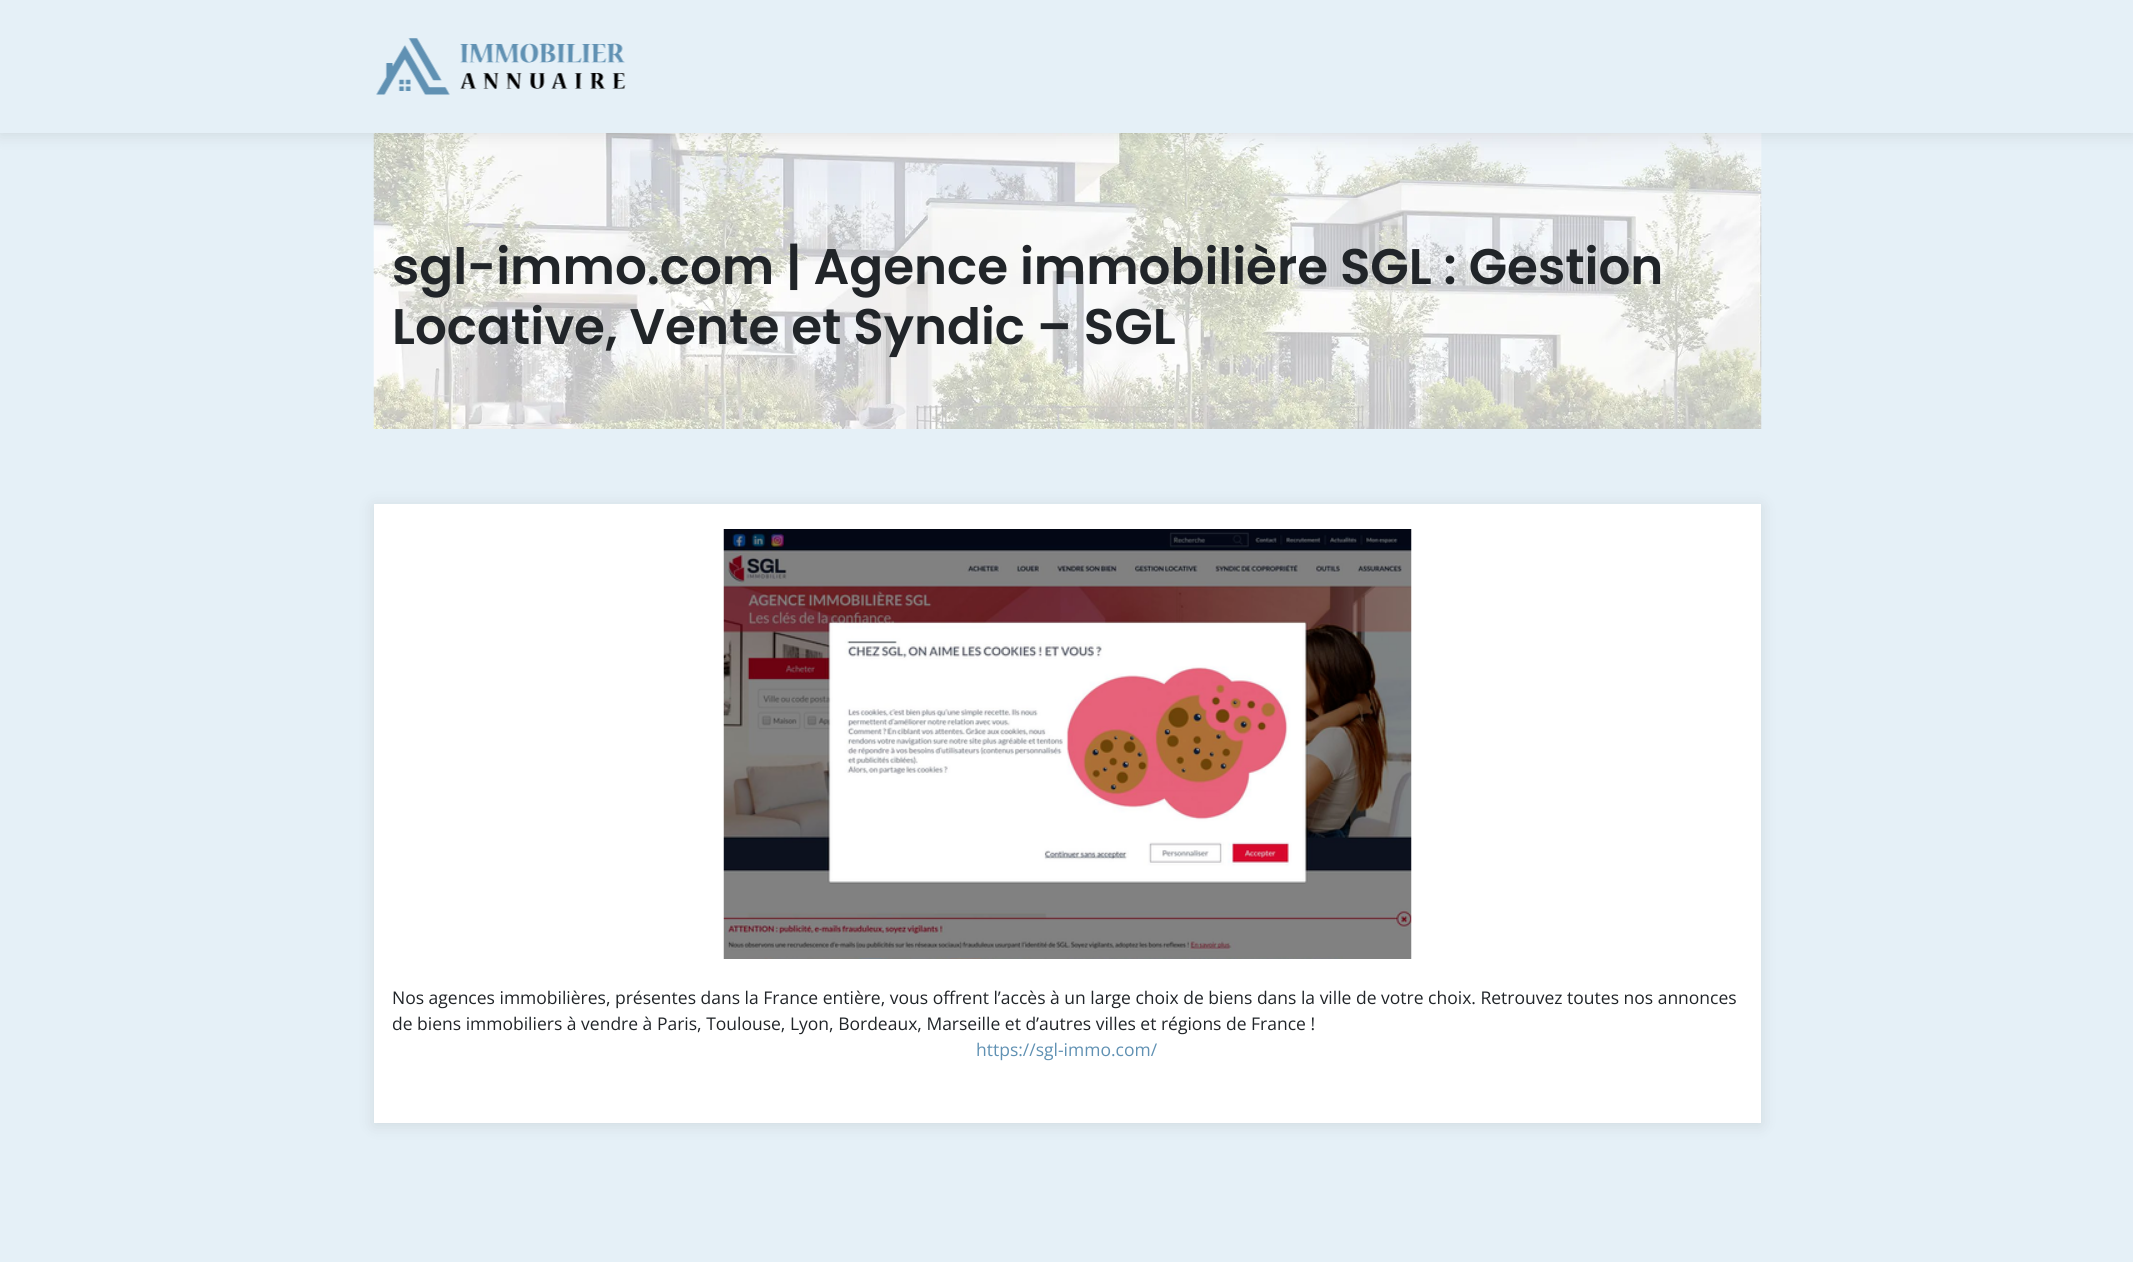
#include <cairo.h>
#include <math.h>
#include <stddef.h>


static void rgb(cairo_t *cr, int r, int g, int b)
{
	cairo_set_source_rgb(cr, r / 255.0, g / 255.0, b / 255.0);
}

static void face(cairo_t *cr, const char *family, double size, int italic, int bold)
{
	cairo_select_font_face(cr, family, italic ? CAIRO_FONT_SLANT_ITALIC : CAIRO_FONT_SLANT_NORMAL,
		bold ? CAIRO_FONT_WEIGHT_BOLD : CAIRO_FONT_WEIGHT_NORMAL);
	cairo_set_font_size(cr, size);
}

static void label(cairo_t *cr, double x, double y, const char *s)
{
	cairo_move_to(cr, x, y);
	cairo_show_text(cr, s);
}

static void rect(cairo_t *cr, double x, double y, double w, double h)
{
	cairo_rectangle(cr, x, y, w, h);
	cairo_fill(cr);
}

static void rrect(cairo_t *cr, double x, double y, double w, double h, double r)
{
	cairo_new_sub_path(cr);
	cairo_arc(cr, x + w - r, y + h - r, r, 0, M_PI / 2);
	cairo_arc(cr, x + r, y + h - r, r, M_PI / 2, M_PI);
	cairo_arc(cr, x + r, y + r, r, M_PI, 1.5 * M_PI);
	cairo_arc(cr, x + w - r, y + r, r, 1.5 * M_PI, 2 * M_PI);
	cairo_close_path(cr);
}

static void soft_shadow(cairo_t *cr, double x, double y, double w, double h, double r, double blur, double alpha)
{
	cairo_push_group_with_content(cr, CAIRO_CONTENT_ALPHA);
	cairo_set_operator(cr, CAIRO_OPERATOR_SOURCE);
	for (int i = 15; i >= -15 && fmin(w, h) + blur * i / 3 > 0; i -= 2) {
		double e = blur * i / 6;
		cairo_set_source_rgba(cr, 0, 0, 0, alpha * erfc((i - 1) / 8.5) / 2);
		rrect(cr, x - e, y - e, w + 2 * e, h + 2 * e, fmax(0, fmin(r + e + blur * .6, fmin(w, h) / 2 + e)));
		cairo_fill(cr);
	}
	cairo_pattern_t *soft = cairo_pop_group(cr);
	cairo_mask(cr, soft);
	cairo_pattern_destroy(soft);
}

static void image(cairo_t *cr, const char *path, double x, double y, double w, double h)
{
	cairo_surface_t *image = cairo_image_surface_create_from_png(path);
	cairo_save(cr);
	cairo_set_source_surface(cr, image, x, y);
	cairo_rectangle(cr, x, y, w, h);
	cairo_fill(cr);
	cairo_restore(cr);
	cairo_surface_destroy(image);
}

static void draw(cairo_t *cr) {
	rgb(cr, 229, 240, 247);
	cairo_paint(cr);
	image(cr, "image1.png", 373, 133, 1389, 296);
	rgb(cr, 0, 0, 0);
	soft_shadow(cr, 0, 3, 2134, 132, 0, 8, 0.1);
	rgb(cr, 229, 240, 247);
	rect(cr, 0, 0, 2133, 133);
	image(cr, "image0.png", 376, 38, 250, 57);
	face(cr, "Poppins SemiBold", 50, 0, 0);
	rgb(cr, 33, 37, 41);
	label(cr, 392, 284, "sgl-immo.com | Agence immobilière SGL : Gestion");
	label(cr, 392, 344, "Locative, Vente et Syndic – SGL");
	rgb(cr, 0, 0, 0);
	soft_shadow(cr, 374, 506, 1387, 619, 0, 8, 0.1);
	rgb(cr, 255, 255, 255);
	rect(cr, 374, 504, 1387, 619);
	image(cr, "image2.png", 723, 529, 689, 430);
	face(cr, "Open Sans", 17.5, 0, 0);
	rgb(cr, 33, 37, 41);
	label(cr, 392, 1004, "Nos agences immobilières, présentes dans la France entière, vous offrent l’accès à un large choix de biens dans la ville de votre choix. Retrouvez toutes nos annonces");
	label(cr, 392, 1030, "de biens immobiliers à vendre à Paris, Toulouse, Lyon, Bordeaux, Marseille et d’autres villes et régions de France !");
	rgb(cr, 96, 145, 179);
	label(cr, 976, 1056, "https://sgl-immo.com/");
}

int main(void) {
	cairo_surface_t *surface = cairo_image_surface_create(CAIRO_FORMAT_RGB24, 2133, 1262);
	cairo_t *cr = cairo_create(surface);
	cairo_font_options_t *options = cairo_font_options_create();
	cairo_font_options_set_hint_metrics(options, CAIRO_HINT_METRICS_OFF);
	cairo_font_options_set_hint_style(options, CAIRO_HINT_STYLE_NONE);
	cairo_set_font_options(cr, options);
	cairo_set_miter_limit(cr, 4);
	draw(cr);
	cairo_surface_write_to_png(surface, "render.png");
	cairo_font_options_destroy(options);
	cairo_destroy(cr);
	cairo_surface_destroy(surface);
	return 0;
}
